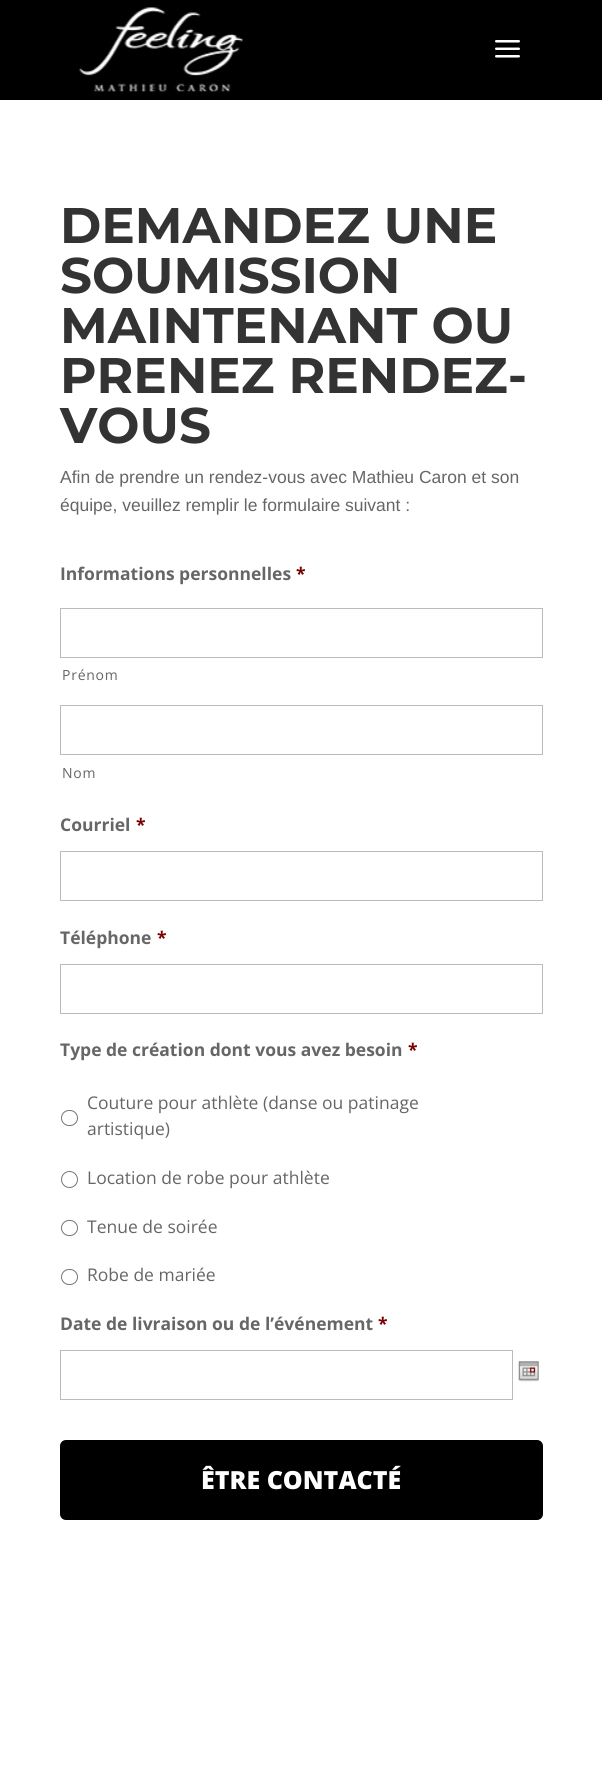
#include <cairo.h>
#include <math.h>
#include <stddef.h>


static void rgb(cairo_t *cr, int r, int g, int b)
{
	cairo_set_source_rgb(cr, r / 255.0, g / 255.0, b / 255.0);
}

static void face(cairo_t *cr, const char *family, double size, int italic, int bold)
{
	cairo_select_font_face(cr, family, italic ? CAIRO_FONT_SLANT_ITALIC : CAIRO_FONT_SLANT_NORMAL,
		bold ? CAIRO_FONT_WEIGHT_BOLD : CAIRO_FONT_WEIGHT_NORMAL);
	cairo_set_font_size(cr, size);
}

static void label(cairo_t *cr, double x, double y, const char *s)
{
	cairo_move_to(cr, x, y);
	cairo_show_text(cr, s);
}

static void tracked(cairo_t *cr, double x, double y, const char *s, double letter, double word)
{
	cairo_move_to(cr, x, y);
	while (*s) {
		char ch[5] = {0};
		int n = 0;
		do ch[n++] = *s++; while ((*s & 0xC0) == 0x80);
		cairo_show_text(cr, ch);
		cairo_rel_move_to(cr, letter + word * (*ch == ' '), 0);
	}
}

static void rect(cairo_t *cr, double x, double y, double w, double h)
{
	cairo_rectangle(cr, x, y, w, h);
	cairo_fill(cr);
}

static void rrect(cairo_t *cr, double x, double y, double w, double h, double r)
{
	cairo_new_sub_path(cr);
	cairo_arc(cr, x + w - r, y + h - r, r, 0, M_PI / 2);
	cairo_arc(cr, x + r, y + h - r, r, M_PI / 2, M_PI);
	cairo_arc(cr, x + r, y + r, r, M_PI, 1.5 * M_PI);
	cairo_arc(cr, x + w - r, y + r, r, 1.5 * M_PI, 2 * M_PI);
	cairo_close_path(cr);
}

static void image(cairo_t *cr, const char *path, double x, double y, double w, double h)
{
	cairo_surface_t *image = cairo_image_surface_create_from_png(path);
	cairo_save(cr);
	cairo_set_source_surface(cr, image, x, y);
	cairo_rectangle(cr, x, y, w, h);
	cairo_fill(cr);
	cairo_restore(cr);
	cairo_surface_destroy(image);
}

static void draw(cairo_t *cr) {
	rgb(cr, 255, 255, 255);
	cairo_paint(cr);
	rgb(cr, 0, 0, 0);
	rect(cr, 0, 0, 602, 100);
	image(cr, "image0.png", 79, 7, 164, 85);
	image(cr, "image1.png", 495, 40, 25, 18);
	face(cr, "Montserrat", 50, 0, 1);
	rgb(cr, 51, 51, 51);
	label(cr, 60, 243, "DEMANDEZ UNE");
	label(cr, 60, 293, "SOUMISSION");
	label(cr, 60, 343, "MAINTENANT OU");
	label(cr, 60, 393, "PRENEZ RENDEZ-");
	label(cr, 60, 443, "VOUS");
	face(cr, "Liberation Sans", 17.5, 0, 0);
	rgb(cr, 102, 102, 102);
	label(cr, 60, 483, "Afin de prendre un rendez-vous avec Mathieu Caron et son");
	label(cr, 60, 511, "équipe, veuillez remplir le formulaire suivant :");
	face(cr, "Open Sans", 17.5, 0, 1);
	label(cr, 60, 580, "Informations personnelles");
	rgb(cr, 121, 0, 0);
	label(cr, 296, 580, "*");
	cairo_rectangle(cr, 60.5, 608.5, 482, 49);
	rgb(cr, 187, 187, 187);
	cairo_set_line_width(cr, 1);
	cairo_stroke(cr);
	face(cr, "Open Sans", 14, 0, 0);
	rgb(cr, 102, 102, 102);
	tracked(cr, 62, 680, "Prénom", 0.75, 0);
	cairo_rectangle(cr, 60.5, 705.5, 482, 49);
	rgb(cr, 187, 187, 187);
	cairo_stroke(cr);
	rgb(cr, 102, 102, 102);
	tracked(cr, 62, 778, "Nom", 0.75, 0);
	face(cr, "Open Sans", 17.5, 0, 1);
	label(cr, 60, 831, "Courriel");
	rgb(cr, 121, 0, 0);
	label(cr, 136, 831, "*");
	cairo_rectangle(cr, 60.5, 851.5, 482, 49);
	rgb(cr, 187, 187, 187);
	cairo_stroke(cr);
	rgb(cr, 102, 102, 102);
	label(cr, 60, 944, "Téléphone");
	rgb(cr, 121, 0, 0);
	label(cr, 157, 944, "*");
	cairo_rectangle(cr, 60.5, 964.5, 482, 49);
	rgb(cr, 187, 187, 187);
	cairo_stroke(cr);
	rgb(cr, 102, 102, 102);
	label(cr, 60, 1056, "Type de création dont vous avez besoin");
	rgb(cr, 121, 0, 0);
	label(cr, 408, 1056, "*");
	rrect(cr, 61.5, 1110.5, 16, 15, 7.5);
	rgb(cr, 118, 118, 118);
	cairo_stroke(cr);
	face(cr, "Open Sans", 17.5, 0, 0);
	rgb(cr, 102, 102, 102);
	label(cr, 87, 1109, "Couture pour athlète (danse ou patinage");
	label(cr, 87, 1135, "artistique)");
	cairo_new_path(cr);
	cairo_arc(cr, 69.5, 1179.5, 8, 0, 2 * M_PI);
	rgb(cr, 118, 118, 118);
	cairo_stroke(cr);
	rgb(cr, 102, 102, 102);
	label(cr, 87, 1184, "Location de robe pour athlète");
	rrect(cr, 61.5, 1220.5, 16, 15, 7.5);
	rgb(cr, 118, 118, 118);
	cairo_stroke(cr);
	rgb(cr, 102, 102, 102);
	label(cr, 87, 1233, "Tenue de soirée");
	rrect(cr, 61.5, 1269.5, 16, 15, 7.5);
	rgb(cr, 118, 118, 118);
	cairo_stroke(cr);
	rgb(cr, 102, 102, 102);
	label(cr, 87, 1281, "Robe de mariée");
	face(cr, "Open Sans", 17.5, 0, 1);
	label(cr, 60, 1330, "Date de livraison ou de l’événement");
	rgb(cr, 121, 0, 0);
	label(cr, 378, 1330, "*");
	cairo_rectangle(cr, 60.5, 1350.5, 452, 49);
	rgb(cr, 187, 187, 187);
	cairo_stroke(cr);
	image(cr, "image2.png", 517, 1361, 22, 21);
	rgb(cr, 0, 0, 0);
	rrect(cr, 61.5, 1441.5, 480, 77, 4.5);
	cairo_fill_preserve(cr);
	cairo_set_line_width(cr, 3);
	cairo_stroke(cr);
	face(cr, "Open Sans ExtraBold", 25, 0, 0);
	rgb(cr, 255, 255, 255);
	label(cr, 201, 1489, "ÊTRE CONTACTÉ");
}

int main(void) {
	cairo_surface_t *surface = cairo_image_surface_create(CAIRO_FORMAT_RGB24, 602, 1778);
	cairo_t *cr = cairo_create(surface);
	cairo_font_options_t *options = cairo_font_options_create();
	cairo_font_options_set_hint_metrics(options, CAIRO_HINT_METRICS_OFF);
	cairo_font_options_set_hint_style(options, CAIRO_HINT_STYLE_NONE);
	cairo_set_font_options(cr, options);
	cairo_set_miter_limit(cr, 4);
	draw(cr);
	cairo_surface_write_to_png(surface, "render.png");
	cairo_font_options_destroy(options);
	cairo_destroy(cr);
	cairo_surface_destroy(surface);
	return 0;
}
